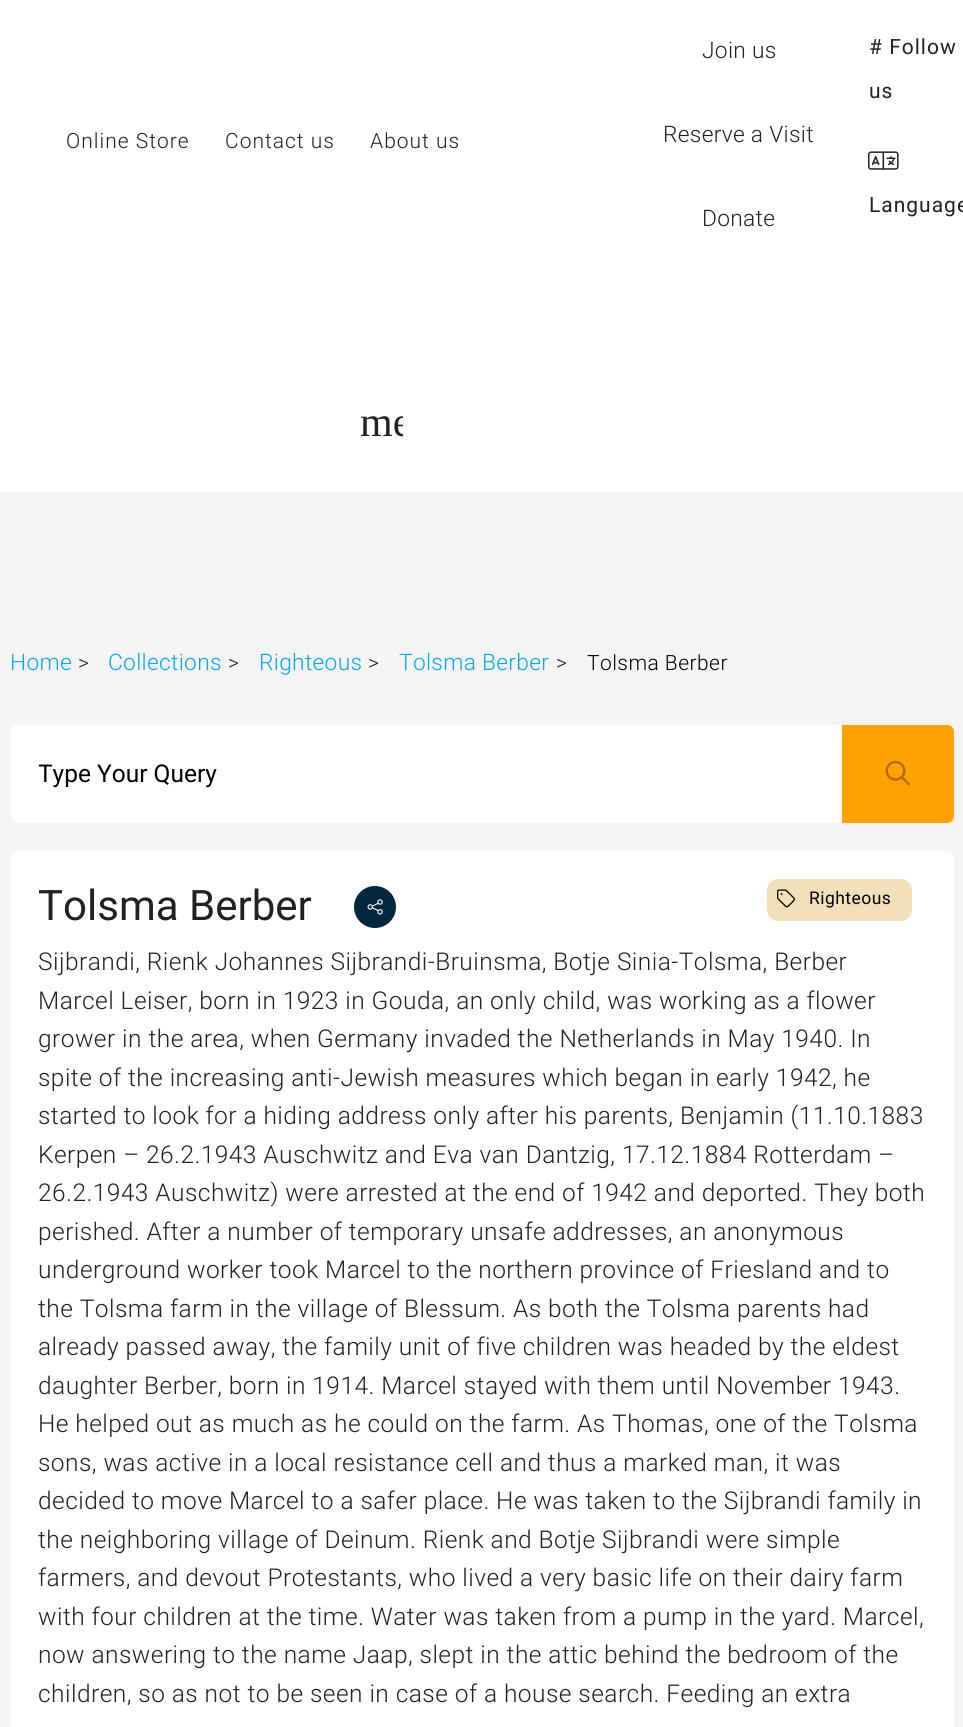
#include <cairo.h>
#include <math.h>
#include <stddef.h>


static void rgb(cairo_t *cr, int r, int g, int b)
{
	cairo_set_source_rgb(cr, r / 255.0, g / 255.0, b / 255.0);
}

static void face(cairo_t *cr, const char *family, double size, int italic, int bold)
{
	cairo_select_font_face(cr, family, italic ? CAIRO_FONT_SLANT_ITALIC : CAIRO_FONT_SLANT_NORMAL,
		bold ? CAIRO_FONT_WEIGHT_BOLD : CAIRO_FONT_WEIGHT_NORMAL);
	cairo_set_font_size(cr, size);
}

static void label(cairo_t *cr, double x, double y, const char *s)
{
	cairo_move_to(cr, x, y);
	cairo_show_text(cr, s);
}

static void tracked(cairo_t *cr, double x, double y, const char *s, double letter, double word)
{
	cairo_move_to(cr, x, y);
	while (*s) {
		char ch[5] = {0};
		int n = 0;
		do ch[n++] = *s++; while ((*s & 0xC0) == 0x80);
		cairo_show_text(cr, ch);
		cairo_rel_move_to(cr, letter + word * (*ch == ' '), 0);
	}
}

static void rect(cairo_t *cr, double x, double y, double w, double h)
{
	cairo_rectangle(cr, x, y, w, h);
	cairo_fill(cr);
}

static void rrect(cairo_t *cr, double x, double y, double w, double h, double r)
{
	cairo_new_sub_path(cr);
	cairo_arc(cr, x + w - r, y + h - r, r, 0, M_PI / 2);
	cairo_arc(cr, x + r, y + h - r, r, M_PI / 2, M_PI);
	cairo_arc(cr, x + r, y + r, r, M_PI, 1.5 * M_PI);
	cairo_arc(cr, x + w - r, y + r, r, 1.5 * M_PI, 2 * M_PI);
	cairo_close_path(cr);
}

static void image(cairo_t *cr, const char *path, double x, double y, double w, double h)
{
	cairo_surface_t *image = cairo_image_surface_create_from_png(path);
	cairo_save(cr);
	cairo_set_source_surface(cr, image, x, y);
	cairo_rectangle(cr, x, y, w, h);
	cairo_fill(cr);
	cairo_restore(cr);
	cairo_surface_destroy(image);
}

static void draw(cairo_t *cr) {
	rgb(cr, 245, 243, 243);
	cairo_paint(cr);
	rgb(cr, 255, 255, 255);
	rect(cr, 0, 0, 963, 492);
	face(cr, "Roboto Light", 21, 0, 0);
	rgb(cr, 33, 33, 33);
	tracked(cr, 66, 148, "Online Store", 1, 0);
	tracked(cr, 225, 148, "Contact us", 1, 0);
	tracked(cr, 370, 148, "About us", 1, 0);
	face(cr, "Roboto Light", 22.75, 0, 0);
	tracked(cr, 702, 58, "Join us", 0.3, 0);
	tracked(cr, 663, 142, "Reserve a Visit", 0.3, 0);
	tracked(cr, 702, 226, "Donate", 0.3, 0);
	face(cr, "Roboto", 21, 0, 0);
	tracked(cr, 869, 54, "# Follow", 1, 0);
	tracked(cr, 869, 98, "us", 1, 0);
	image(cr, "image0.png", 868, 151, 31, 19);
	tracked(cr, 869, 212, "Language", 1, 0);
	cairo_save(cr);
	cairo_rectangle(cr, 361, 401, 42, 42);
	cairo_clip(cr);
	face(cr, "Liberation Serif", 42, 0, 0);
	label(cr, 360, 436, "me");
	cairo_restore(cr);
	face(cr, "Roboto Light", 22.75, 0, 0);
	rgb(cr, 2, 167, 240);
	tracked(cr, 10, 670, "Home", 0.3, 0);
	face(cr, "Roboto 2 Light", 21, 0, 0);
	rgb(cr, 33, 33, 33);
	tracked(cr, 78, 670, ">", 0.45, 0);
	face(cr, "Roboto Light", 22.75, 0, 0);
	rgb(cr, 2, 167, 240);
	tracked(cr, 108, 670, "Collections", 0.3, 0);
	face(cr, "Roboto 2 Light", 21, 0, 0);
	rgb(cr, 33, 33, 33);
	tracked(cr, 228, 670, ">", 0.45, 0);
	face(cr, "Roboto Light", 22.75, 0, 0);
	rgb(cr, 2, 167, 240);
	tracked(cr, 259, 670, "Righteous", 0.3, 0);
	face(cr, "Roboto 2 Light", 21, 0, 0);
	rgb(cr, 33, 33, 33);
	tracked(cr, 368, 670, ">", 0.45, 0);
	face(cr, "Roboto Light", 22.75, 0, 0);
	rgb(cr, 2, 167, 240);
	tracked(cr, 399, 670, "Tolsma Berber", 0.3, 0);
	face(cr, "Roboto 2 Light", 21, 0, 0);
	rgb(cr, 33, 33, 33);
	tracked(cr, 556, 670, ">", 0.45, 0);
	rgb(cr, 0, 0, 0);
	tracked(cr, 587, 670, "Tolsma Berber", 0.45, 0);
	rgb(cr, 255, 255, 255);
	cairo_new_path(cr);
	cairo_move_to(cr, 11, 725);
	cairo_line_to(cr, 842, 725);
	cairo_line_to(cr, 842, 823);
	cairo_line_to(cr, 18, 823);
	cairo_curve_to(cr, 14, 823, 11, 820, 11, 816);
	cairo_close_path(cr);
	cairo_fill(cr);
	cairo_save(cr);
	cairo_rectangle(cr, 39, 753, 178, 42);
	cairo_clip(cr);
	face(cr, "Roboto", 24.5, 0, 0);
	rgb(cr, 0, 0, 0);
	label(cr, 38, 782, "Type Your Query");
	cairo_restore(cr);
	rgb(cr, 255, 161, 1);
	cairo_new_path(cr);
	cairo_move_to(cr, 842, 725);
	cairo_line_to(cr, 947, 725);
	cairo_curve_to(cr, 951, 725, 954, 728, 954, 732);
	cairo_line_to(cr, 954, 816);
	cairo_curve_to(cr, 954, 820, 951, 823, 947, 823);
	cairo_line_to(cr, 842, 823);
	cairo_close_path(cr);
	cairo_fill(cr);
	image(cr, "image1.png", 885, 760, 25, 26);
	rgb(cr, 255, 255, 255);
	cairo_new_path(cr);
	cairo_move_to(cr, 18, 851);
	cairo_line_to(cr, 947, 851);
	cairo_curve_to(cr, 951, 851, 954, 854, 954, 858);
	cairo_line_to(cr, 954, 1727);
	cairo_line_to(cr, 11, 1727);
	cairo_line_to(cr, 11, 858);
	cairo_curve_to(cr, 11, 854, 14, 851, 18, 851);
	cairo_close_path(cr);
	cairo_fill(cr);
	face(cr, "Roboto", 42, 0, 0);
	rgb(cr, 33, 33, 33);
	label(cr, 38, 920, "Tolsma Berber");
	rgb(cr, 2, 39, 63);
	cairo_new_path(cr);
	cairo_arc(cr, 375, 907, 21, 0, 2 * M_PI);
	cairo_fill(cr);
	image(cr, "image2.png", 367, 899, 16, 16);
	rgb(cr, 241, 224, 186);
	rrect(cr, 767, 879, 145, 42, 11);
	cairo_fill(cr);
	image(cr, "image3.png", 777, 889, 18, 19);
	face(cr, "Roboto", 17.5, 0, 0);
	rgb(cr, 0, 0, 0);
	tracked(cr, 809, 904, "Righteous", 0.45, 0);
	face(cr, "Roboto Light", 24.5, 0, 0);
	rgb(cr, 33, 33, 33);
	tracked(cr, 38, 970, "Sijbrandi, Rienk Johannes Sijbrandi-Bruinsma, Botje Sinia-Tolsma, Berber", 0.45, 0);
	tracked(cr, 38, 1009, "Marcel Leiser, born in 1923 in Gouda, an only child, was working as a flower", 0.45, 0);
	tracked(cr, 38, 1047, "grower in the area, when Germany invaded the Netherlands in May 1940. In", 0.45, 0);
	tracked(cr, 38, 1086, "spite of the increasing anti-Jewish measures which began in early 1942, he", 0.45, 0);
	tracked(cr, 38, 1124, "started to look for a hiding address only after his parents, Benjamin (11.10.1883", 0.45, 0);
	tracked(cr, 38, 1163, "Kerpen – 26.2.1943 Auschwitz and Eva van Dantzig, 17.12.1884 Rotterdam –", 0.45, 0);
	tracked(cr, 38, 1201, "26.2.1943 Auschwitz) were arrested at the end of 1942 and deported. They both", 0.45, 0);
	tracked(cr, 38, 1240, "perished. After a number of temporary unsafe addresses, an anonymous", 0.45, 0);
	tracked(cr, 38, 1278, "underground worker took Marcel to the northern province of Friesland and to", 0.45, 0);
	tracked(cr, 38, 1317, "the Tolsma farm in the village of Blessum. As both the Tolsma parents had", 0.45, 0);
	tracked(cr, 38, 1355, "already passed away, the family unit of five children was headed by the eldest", 0.45, 0);
	tracked(cr, 38, 1394, "daughter Berber, born in 1914. Marcel stayed with them until November 1943.", 0.45, 0);
	tracked(cr, 38, 1432, "He helped out as much as he could on the farm. As Thomas, one of the Tolsma", 0.45, 0);
	tracked(cr, 38, 1471, "sons, was active in a local resistance cell and thus a marked man, it was", 0.45, 0);
	tracked(cr, 38, 1509, "decided to move Marcel to a safer place. He was taken to the Sijbrandi family in", 0.45, 0);
	tracked(cr, 38, 1548, "the neighboring village of Deinum. Rienk and Botje Sijbrandi were simple", 0.45, 0);
	tracked(cr, 38, 1586, "farmers, and devout Protestants, who lived a very basic life on their dairy farm", 0.45, 0);
	tracked(cr, 38, 1625, "with four children at the time. Water was taken from a pump in the yard. Marcel,", 0.45, 0);
	tracked(cr, 38, 1663, "now answering to the name Jaap, slept in the attic behind the bedroom of the", 0.45, 0);
	tracked(cr, 38, 1702, "children, so as not to be seen in case of a house search. Feeding an extra", 0.45, 0);
}

int main(void) {
	cairo_surface_t *surface = cairo_image_surface_create(CAIRO_FORMAT_RGB24, 963, 1727);
	cairo_t *cr = cairo_create(surface);
	cairo_font_options_t *options = cairo_font_options_create();
	cairo_font_options_set_hint_metrics(options, CAIRO_HINT_METRICS_OFF);
	cairo_font_options_set_hint_style(options, CAIRO_HINT_STYLE_NONE);
	cairo_set_font_options(cr, options);
	cairo_set_miter_limit(cr, 4);
	draw(cr);
	cairo_surface_write_to_png(surface, "render.png");
	cairo_font_options_destroy(options);
	cairo_destroy(cr);
	cairo_surface_destroy(surface);
	return 0;
}
